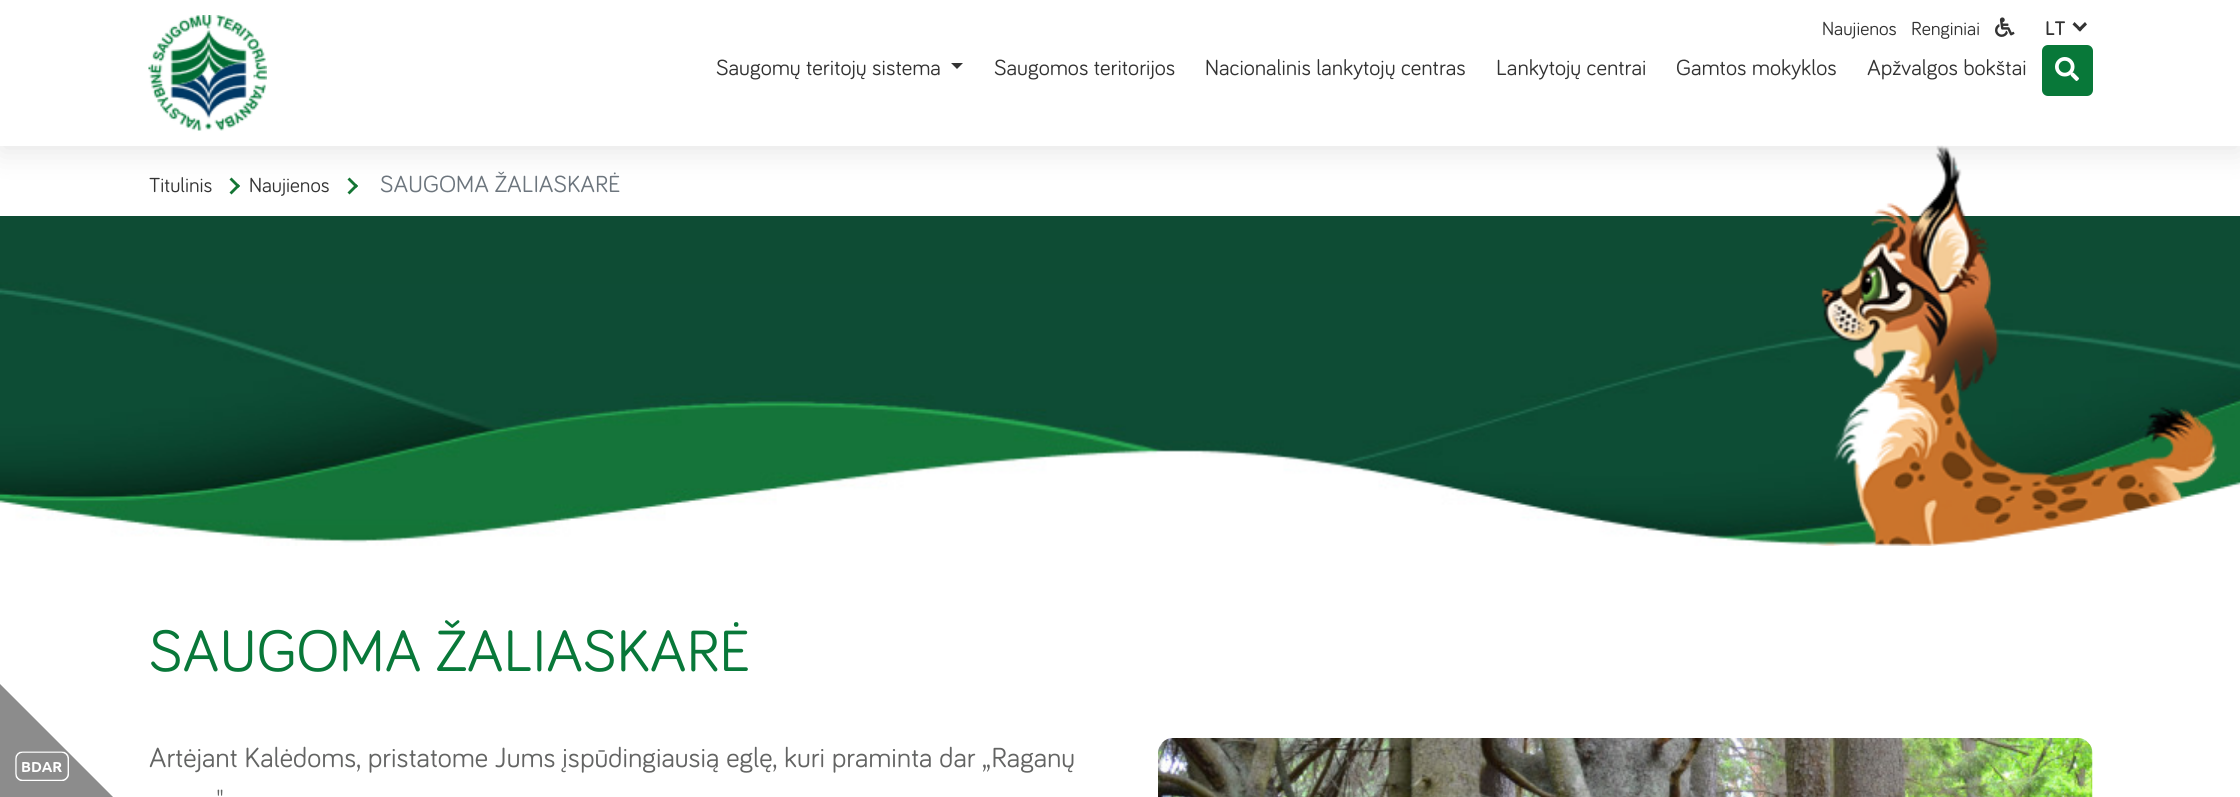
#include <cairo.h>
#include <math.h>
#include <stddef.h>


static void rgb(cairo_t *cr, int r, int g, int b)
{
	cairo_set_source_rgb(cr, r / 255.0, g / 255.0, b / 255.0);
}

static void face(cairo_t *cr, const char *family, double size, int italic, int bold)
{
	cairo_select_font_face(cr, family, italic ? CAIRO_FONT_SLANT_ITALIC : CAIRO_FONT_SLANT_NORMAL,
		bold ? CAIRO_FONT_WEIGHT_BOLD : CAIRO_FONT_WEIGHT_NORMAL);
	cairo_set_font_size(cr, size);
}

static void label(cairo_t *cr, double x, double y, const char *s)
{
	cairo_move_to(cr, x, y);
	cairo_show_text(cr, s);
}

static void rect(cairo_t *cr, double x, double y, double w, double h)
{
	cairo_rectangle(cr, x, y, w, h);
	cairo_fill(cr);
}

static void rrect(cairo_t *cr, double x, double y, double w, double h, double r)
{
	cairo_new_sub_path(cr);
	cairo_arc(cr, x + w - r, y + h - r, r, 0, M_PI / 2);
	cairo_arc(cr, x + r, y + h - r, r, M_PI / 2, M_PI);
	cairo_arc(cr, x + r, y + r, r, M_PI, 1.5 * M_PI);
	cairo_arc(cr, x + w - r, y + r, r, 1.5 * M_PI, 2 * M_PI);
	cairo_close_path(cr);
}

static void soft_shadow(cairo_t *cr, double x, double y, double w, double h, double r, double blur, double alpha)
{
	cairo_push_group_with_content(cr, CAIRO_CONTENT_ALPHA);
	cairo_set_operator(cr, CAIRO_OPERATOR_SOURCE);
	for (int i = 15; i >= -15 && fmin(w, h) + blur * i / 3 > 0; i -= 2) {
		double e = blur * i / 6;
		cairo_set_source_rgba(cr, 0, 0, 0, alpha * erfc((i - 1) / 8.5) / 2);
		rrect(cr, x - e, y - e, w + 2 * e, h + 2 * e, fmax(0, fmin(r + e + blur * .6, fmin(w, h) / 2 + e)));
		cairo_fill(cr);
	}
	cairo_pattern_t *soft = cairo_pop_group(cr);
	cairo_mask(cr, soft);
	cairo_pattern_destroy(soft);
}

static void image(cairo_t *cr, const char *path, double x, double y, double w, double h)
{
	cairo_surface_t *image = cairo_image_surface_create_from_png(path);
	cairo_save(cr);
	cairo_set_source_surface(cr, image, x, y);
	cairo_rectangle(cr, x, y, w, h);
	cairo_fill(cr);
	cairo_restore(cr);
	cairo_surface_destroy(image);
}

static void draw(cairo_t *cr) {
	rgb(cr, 255, 255, 255);
	cairo_paint(cr);
	rgb(cr, 14, 76, 52);
	rect(cr, 0, 216, 2240, 68);
	image(cr, "image4.png", 0, 145, 2240, 401);
	cairo_save(cr);
	cairo_set_fill_rule(cr, CAIRO_FILL_RULE_EVEN_ODD);
	cairo_new_path(cr);
	cairo_move_to(cr, 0, 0);
	cairo_line_to(cr, 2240, 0);
	cairo_line_to(cr, 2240, 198);
	cairo_line_to(cr, 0, 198);
	cairo_close_path(cr);
	cairo_move_to(cr, 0, 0);
	cairo_line_to(cr, 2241, 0);
	cairo_line_to(cr, 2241, 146);
	cairo_line_to(cr, 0, 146);
	cairo_close_path(cr);
	cairo_clip(cr);
	rgb(cr, 0, 0, 0);
	soft_shadow(cr, 0, 6, 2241, 146, 0, 15, 0.1);
	cairo_restore(cr);
	image(cr, "image0.png", 148, 15, 119, 116);
	face(cr, "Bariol", 19.5, 0, 0);
	rgb(cr, 51, 51, 51);
	label(cr, 1822, 35, "Naujienos");
	label(cr, 1911, 35, "Renginiai");
	image(cr, "image1.png", 1995, 17, 20, 20);
	face(cr, "Bariol", 19.5, 0, 1);
	label(cr, 2045, 35, "LT");
	cairo_new_path(cr);
	cairo_move_to(cr, 2087, 24.5);
	cairo_line_to(cr, 2080, 31.5);
	cairo_line_to(cr, 2077.5, 29.5);
	cairo_line_to(cr, 2085, 22);
	cairo_close_path(cr);
	cairo_fill(cr);
	cairo_new_path(cr);
	cairo_move_to(cr, 2082, 29.5);
	cairo_line_to(cr, 2080, 31.5);
	cairo_line_to(cr, 2072.5, 24.5);
	cairo_line_to(cr, 2074.5, 22);
	cairo_close_path(cr);
	cairo_fill(cr);
	face(cr, "Bariol", 22.5, 0, 0);
	label(cr, 716, 75, "Saugomų teritojų sistema");
	cairo_new_path(cr);
	cairo_move_to(cr, 951, 63);
	cairo_line_to(cr, 963, 63);
	cairo_line_to(cr, 957, 69);
	cairo_close_path(cr);
	cairo_fill(cr);
	label(cr, 994, 75, "Saugomos teritorijos");
	label(cr, 1205, 75, "Nacionalinis lankytojų centras");
	label(cr, 1496, 75, "Lankytojų centrai");
	label(cr, 1676, 75, "Gamtos mokyklos");
	label(cr, 1867, 75, "Apžvalgos bokštai");
	rgb(cr, 8, 120, 57);
	rrect(cr, 2042, 45, 51, 51, 6);
	cairo_fill(cr);
	image(cr, "image2.png", 2055, 57, 24, 24);
	face(cr, "Bariol", 21, 0, 0);
	rgb(cr, 51, 51, 51);
	label(cr, 149, 192, "Titulinis");
	rgb(cr, 20, 117, 52);
	cairo_new_path(cr);
	cairo_move_to(cr, 231.5, 177.5);
	cairo_line_to(cr, 240, 186);
	cairo_line_to(cr, 238, 188);
	cairo_line_to(cr, 229.5, 179.5);
	cairo_close_path(cr);
	cairo_fill(cr);
	cairo_new_path(cr);
	cairo_move_to(cr, 238, 184);
	cairo_line_to(cr, 240, 186);
	cairo_line_to(cr, 231.5, 194.5);
	cairo_line_to(cr, 229.5, 192.5);
	cairo_close_path(cr);
	cairo_fill(cr);
	rgb(cr, 51, 51, 51);
	label(cr, 249, 192, "Naujienos");
	rgb(cr, 20, 117, 52);
	cairo_new_path(cr);
	cairo_move_to(cr, 349.5, 177.5);
	cairo_line_to(cr, 358, 186);
	cairo_line_to(cr, 356, 188);
	cairo_line_to(cr, 347.5, 179.5);
	cairo_close_path(cr);
	cairo_fill(cr);
	cairo_new_path(cr);
	cairo_move_to(cr, 356, 184);
	cairo_line_to(cr, 358, 186);
	cairo_line_to(cr, 349.5, 194.5);
	cairo_line_to(cr, 347.5, 192.5);
	cairo_close_path(cr);
	cairo_fill(cr);
	face(cr, "Bariol", 24, 0, 0);
	rgb(cr, 108, 117, 125);
	label(cr, 380, 192, "SAUGOMA ŽALIASKARĖ");
	rgb(cr, 140, 140, 140);
	cairo_new_path(cr);
	cairo_move_to(cr, -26, 658);
	cairo_line_to(cr, 117, 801);
	cairo_line_to(cr, 27, 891);
	cairo_line_to(cr, -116, 748);
	cairo_close_path(cr);
	cairo_fill(cr);
	image(cr, "image3.png", 15, 751, 54, 30);
	face(cr, "Bariol", 60, 0, 0);
	rgb(cr, 8, 120, 57);
	label(cr, 149, 671, "SAUGOMA ŽALIASKARĖ");
	face(cr, "Bariol", 28.5, 0, 0);
	rgb(cr, 99, 100, 99);
	label(cr, 149, 767, "Artėjant Kalėdoms, pristatome Jums įspūdingiausią eglę, kuri praminta dar „Raganų");
	label(cr, 216, 809, "\"");
	image(cr, "image5.png", 1158, 738, 935, 59);
}

int main(void) {
	cairo_surface_t *surface = cairo_image_surface_create(CAIRO_FORMAT_RGB24, 2240, 797);
	cairo_t *cr = cairo_create(surface);
	cairo_font_options_t *options = cairo_font_options_create();
	cairo_font_options_set_hint_metrics(options, CAIRO_HINT_METRICS_OFF);
	cairo_font_options_set_hint_style(options, CAIRO_HINT_STYLE_NONE);
	cairo_set_font_options(cr, options);
	cairo_set_miter_limit(cr, 4);
	draw(cr);
	cairo_surface_write_to_png(surface, "render.png");
	cairo_font_options_destroy(options);
	cairo_destroy(cr);
	cairo_surface_destroy(surface);
	return 0;
}
